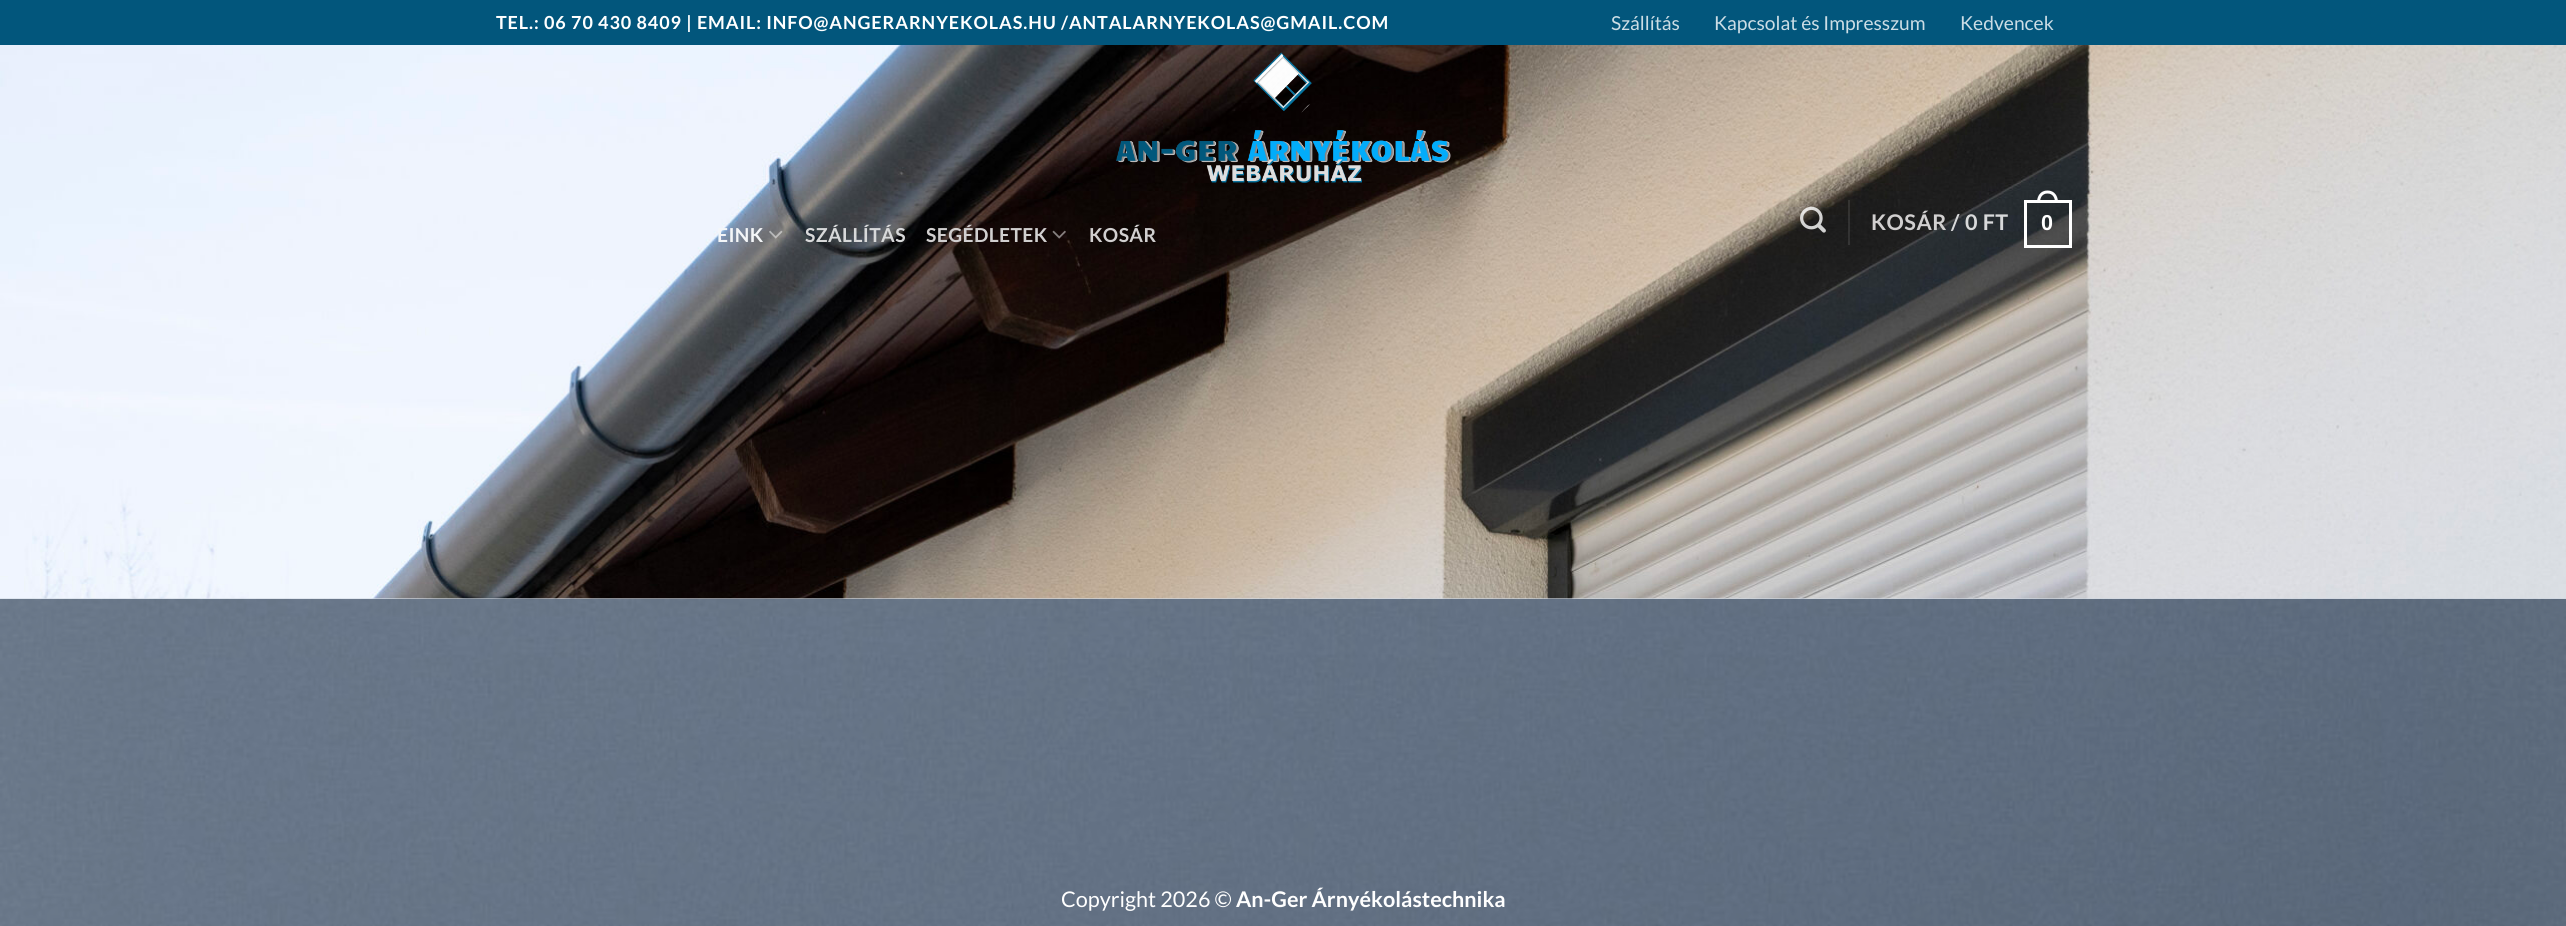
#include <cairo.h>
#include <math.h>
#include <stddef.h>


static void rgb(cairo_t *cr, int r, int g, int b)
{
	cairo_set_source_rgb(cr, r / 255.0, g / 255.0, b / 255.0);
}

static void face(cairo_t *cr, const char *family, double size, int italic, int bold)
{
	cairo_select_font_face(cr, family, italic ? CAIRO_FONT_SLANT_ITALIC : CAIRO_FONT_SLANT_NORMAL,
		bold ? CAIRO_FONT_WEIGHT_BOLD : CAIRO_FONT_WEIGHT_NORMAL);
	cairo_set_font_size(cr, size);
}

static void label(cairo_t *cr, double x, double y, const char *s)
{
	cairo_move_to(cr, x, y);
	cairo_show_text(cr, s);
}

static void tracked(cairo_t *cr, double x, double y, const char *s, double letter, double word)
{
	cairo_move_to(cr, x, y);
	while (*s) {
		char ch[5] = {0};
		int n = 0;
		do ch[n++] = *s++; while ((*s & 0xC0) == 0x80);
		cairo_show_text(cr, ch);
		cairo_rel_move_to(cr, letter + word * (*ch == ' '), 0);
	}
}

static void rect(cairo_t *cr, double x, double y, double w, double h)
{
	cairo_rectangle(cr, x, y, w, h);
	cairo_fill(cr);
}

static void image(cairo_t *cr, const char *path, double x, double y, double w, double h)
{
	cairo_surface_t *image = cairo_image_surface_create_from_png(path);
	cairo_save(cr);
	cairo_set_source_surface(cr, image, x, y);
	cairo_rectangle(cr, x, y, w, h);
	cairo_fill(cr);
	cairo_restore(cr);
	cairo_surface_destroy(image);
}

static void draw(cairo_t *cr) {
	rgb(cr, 255, 255, 255);
	cairo_paint(cr);
	rgb(cr, 2, 86, 124);
	rect(cr, 0, 0, 2566, 45);
	face(cr, "Lato", 18, 0, 1);
	rgb(cr, 255, 255, 255);
	tracked(cr, 496, 29, "TEL.: 06 70 430 8409 | EMAIL: INFO@ANGERARNYEKOLAS.HU /ANTALARNYEKOLAS@GMAIL.COM", 0.9, 0);
	face(cr, "Lato", 19.25, 0, 0);
	rgb(cr, 204, 221, 229);
	label(cr, 1611, 30, "Szállítás");
	label(cr, 1714, 30, "Kapcsolat és Impresszum");
	label(cr, 1960, 30, "Kedvencek");
	image(cr, "image4.png", 0, 45, 2566, 554);
	image(cr, "image0.png", 1116, 52, 335, 131);
	image(cr, "image1.png", 1800, 206, 26, 27);
	cairo_set_source_rgba(cr, 1, 1, 1, 0.1);
	rect(cr, 1848, 200, 2, 45);
	face(cr, "Lato", 21.6, 0, 1);
	rgb(cr, 209, 207, 207);
	tracked(cr, 1871, 230, "KOSÁR", 0.5, 0);
	rgb(cr, 216, 217, 218);
	tracked(cr, 1951, 230, "/", 0.5, 0);
	tracked(cr, 1965, 230, "0 FT", 0.5, 0);
	cairo_rectangle(cr, 2025.5, 201.5, 45, 45);
	rgb(cr, 255, 255, 255);
	cairo_set_line_width(cr, 3);
	cairo_stroke(cr);
	cairo_set_fill_rule(cr, CAIRO_FILL_RULE_EVEN_ODD);
	cairo_new_path(cr);
	cairo_move_to(cr, 2047.5, 190.5);
	cairo_curve_to(cr, 2054.5, 190.5, 2058, 196, 2058, 202.5);
	cairo_line_to(cr, 2037, 202.5);
	cairo_curve_to(cr, 2037, 196, 2040.5, 190.5, 2047.5, 190.5);
	cairo_close_path(cr);
	cairo_move_to(cr, 2047.5, 193.5);
	cairo_curve_to(cr, 2053, 193.5, 2055, 198, 2055, 202.5);
	cairo_line_to(cr, 2040, 202.5);
	cairo_curve_to(cr, 2040, 198, 2042, 193.5, 2047.5, 193.5);
	cairo_close_path(cr);
	cairo_fill(cr);
	face(cr, "Liberation Sans", 21.6, 0, 1);
	tracked(cr, 2041, 230, "0", 0.5, 0);
	face(cr, "Lato", 19.25, 0, 1);
	rgb(cr, 244, 246, 248);
	tracked(cr, 717, 242, "EINK", 0.4, 0);
	image(cr, "image2.png", 769, 230, 14, 9);
	rgb(cr, 216, 217, 218);
	tracked(cr, 805, 242, "SZÁLLÍTÁS", 0.4, 0);
	rgb(cr, 209, 207, 207);
	tracked(cr, 926, 242, "SEGÉDLETEK", 0.4, 0);
	image(cr, "image3.png", 1052, 230, 14, 9);
	tracked(cr, 1089, 242, "KOSÁR", 0.4, 0);
	image(cr, "image5.png", 0, 598, 2566, 328);
	face(cr, "Lato", 21.6, 0, 0);
	rgb(cr, 255, 255, 255);
	label(cr, 1061, 907, "Copyright 2026 ©");
	face(cr, "Lato", 21.6, 0, 1);
	label(cr, 1236, 907, "An-Ger Árnyékolástechnika");
}

int main(void) {
	cairo_surface_t *surface = cairo_image_surface_create(CAIRO_FORMAT_RGB24, 2566, 926);
	cairo_t *cr = cairo_create(surface);
	cairo_font_options_t *options = cairo_font_options_create();
	cairo_font_options_set_hint_metrics(options, CAIRO_HINT_METRICS_OFF);
	cairo_font_options_set_hint_style(options, CAIRO_HINT_STYLE_NONE);
	cairo_set_font_options(cr, options);
	cairo_set_miter_limit(cr, 4);
	draw(cr);
	cairo_surface_write_to_png(surface, "render.png");
	cairo_font_options_destroy(options);
	cairo_destroy(cr);
	cairo_surface_destroy(surface);
	return 0;
}
